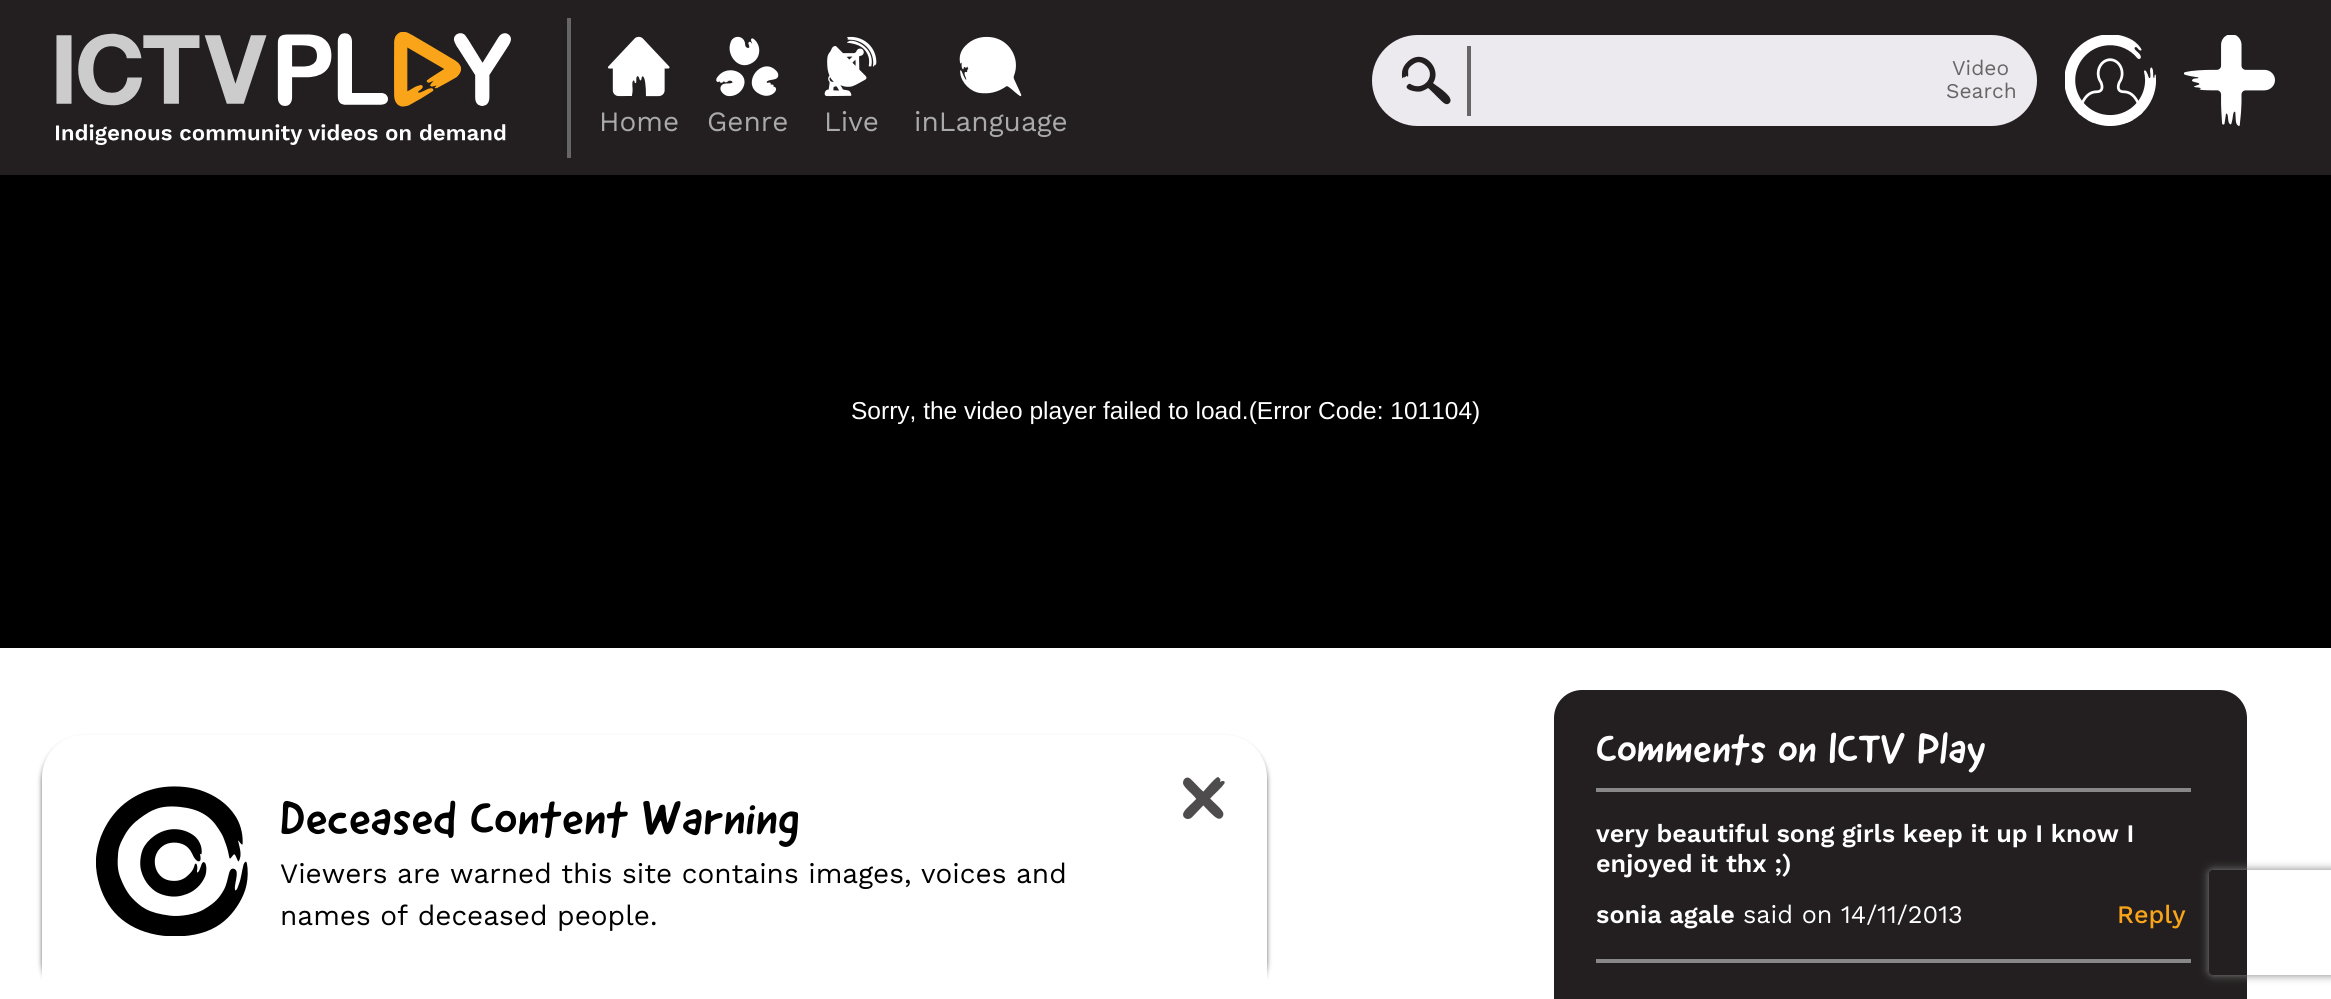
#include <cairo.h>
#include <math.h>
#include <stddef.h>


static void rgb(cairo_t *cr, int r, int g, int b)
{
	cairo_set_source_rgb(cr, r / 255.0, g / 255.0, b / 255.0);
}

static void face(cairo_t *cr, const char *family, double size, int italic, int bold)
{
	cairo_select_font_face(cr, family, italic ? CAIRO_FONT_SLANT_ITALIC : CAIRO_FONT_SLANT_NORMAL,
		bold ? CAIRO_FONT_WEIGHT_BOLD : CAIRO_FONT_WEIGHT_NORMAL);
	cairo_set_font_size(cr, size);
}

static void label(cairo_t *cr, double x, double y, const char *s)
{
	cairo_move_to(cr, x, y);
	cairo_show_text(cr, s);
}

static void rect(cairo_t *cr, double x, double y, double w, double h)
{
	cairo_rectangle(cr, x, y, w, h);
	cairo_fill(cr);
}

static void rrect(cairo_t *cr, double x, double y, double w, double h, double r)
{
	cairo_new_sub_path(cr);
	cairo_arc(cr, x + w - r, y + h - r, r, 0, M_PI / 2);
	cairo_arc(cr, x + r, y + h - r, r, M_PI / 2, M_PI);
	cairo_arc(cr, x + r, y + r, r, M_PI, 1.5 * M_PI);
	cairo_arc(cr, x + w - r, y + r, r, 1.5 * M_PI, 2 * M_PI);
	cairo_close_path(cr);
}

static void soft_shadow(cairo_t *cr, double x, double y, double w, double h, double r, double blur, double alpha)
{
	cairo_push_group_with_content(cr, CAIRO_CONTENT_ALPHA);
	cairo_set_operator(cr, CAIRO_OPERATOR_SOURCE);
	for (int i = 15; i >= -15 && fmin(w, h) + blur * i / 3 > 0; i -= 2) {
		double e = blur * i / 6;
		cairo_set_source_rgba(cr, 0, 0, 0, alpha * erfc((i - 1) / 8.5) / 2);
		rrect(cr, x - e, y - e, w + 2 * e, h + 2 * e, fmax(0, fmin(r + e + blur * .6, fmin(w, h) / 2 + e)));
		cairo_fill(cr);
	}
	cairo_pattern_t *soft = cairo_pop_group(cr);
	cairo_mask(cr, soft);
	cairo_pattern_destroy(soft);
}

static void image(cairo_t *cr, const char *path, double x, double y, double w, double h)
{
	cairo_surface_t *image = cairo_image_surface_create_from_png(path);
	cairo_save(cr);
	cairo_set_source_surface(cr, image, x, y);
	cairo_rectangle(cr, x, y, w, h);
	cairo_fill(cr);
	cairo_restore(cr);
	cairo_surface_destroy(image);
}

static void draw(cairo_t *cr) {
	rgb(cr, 255, 255, 255);
	cairo_paint(cr);
	rgb(cr, 35, 31, 32);
	rect(cr, 0, 0, 2331, 175);
	image(cr, "image0.png", 56, 32, 455, 113);
	rgb(cr, 236, 233, 239);
	rrect(cr, 1372, 35, 665, 91, 45.5);
	cairo_fill(cr);
	image(cr, "image1.png", 1401, 56, 50, 49);
	rgb(cr, 102, 102, 102);
	rect(cr, 1467, 46, 4, 70);
	face(cr, "Work Sans", 21, 0, 0);
	label(cr, 1952, 75, "Video");
	label(cr, 1946, 98, "Search");
	image(cr, "image2.png", 2065, 35, 91, 91);
	image(cr, "image3.png", 2184, 35, 91, 91);
	rect(cr, 567, 18, 4, 140);
	image(cr, "image4.png", 607, 36, 63, 61);
	face(cr, "Work Sans", 28, 0, 0);
	rgb(cr, 170, 170, 170);
	label(cr, 599, 131, "Home");
	image(cr, "image5.png", 716, 36, 63, 61);
	label(cr, 707, 131, "Genre");
	image(cr, "image6.png", 824, 36, 53, 61);
	label(cr, 824, 131, "Live");
	image(cr, "image7.png", 959, 36, 63, 61);
	label(cr, 914, 131, "inLanguage");
	rgb(cr, 0, 0, 0);
	rect(cr, 0, 175, 2331, 473);
	face(cr, "Liberation Sans", 24.5, 0, 0);
	rgb(cr, 255, 255, 255);
	label(cr, 851, 419, "Sorry, the video player failed to load.(Error Code: 101104)");
	rgb(cr, 35, 31, 32);
	rrect(cr, 1554, 690, 693, 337, 28);
	cairo_fill(cr);
	rgb(cr, 136, 136, 136);
	rect(cr, 1596, 788, 595, 4);
	face(cr, "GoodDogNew", 42, 0, 0);
	rgb(cr, 255, 255, 255);
	label(cr, 1596, 763, "Comments on ICTV Play");
	rgb(cr, 136, 136, 136);
	rect(cr, 1596, 959, 595, 4);
	face(cr, "Work Sans SemiBold", 25.2, 0, 0);
	rgb(cr, 255, 255, 255);
	label(cr, 1596, 842, "very beautiful song girls keep it up I know I");
	label(cr, 1596, 872, "enjoyed it thx ;)");
	label(cr, 1596, 923, "sonia agale");
	face(cr, "Work Sans", 25.2, 0, 0);
	label(cr, 1743, 923, "said on 14/11/2013");
	face(cr, "Work Sans Medium", 25.2, 0, 0);
	rgb(cr, 250, 165, 25);
	label(cr, 2117, 923, "Reply");
	rgb(cr, 0, 0, 0);
	soft_shadow(cr, 42, 739, 1225, 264, 42, 2.5, 0.6);
	rgb(cr, 255, 255, 255);
	cairo_new_path(cr);
	cairo_move_to(cr, 84, 735);
	cairo_line_to(cr, 1225, 735);
	cairo_curve_to(cr, 1248, 735, 1267, 754, 1267, 777);
	cairo_line_to(cr, 1267, 999);
	cairo_line_to(cr, 42, 999);
	cairo_line_to(cr, 42, 777);
	cairo_curve_to(cr, 42, 754, 61, 735, 84, 735);
	cairo_close_path(cr);
	cairo_fill(cr);
	image(cr, "image8.png", 96, 786, 152, 150);
	face(cr, "GoodDogNew", 49, 0, 0);
	rgb(cr, 0, 0, 0);
	label(cr, 280, 835, "Deceased Content Warning");
	face(cr, "Work Sans", 28, 0, 0);
	label(cr, 280, 883, "Viewers are warned this site contains images, voices and");
	label(cr, 280, 925, "names of deceased people.");
	image(cr, "image9.png", 1183, 777, 42, 42);
	cairo_save(cr);
	cairo_set_fill_rule(cr, CAIRO_FILL_RULE_EVEN_ODD);
	cairo_new_path(cr);
	cairo_move_to(cr, 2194, 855);
	cairo_line_to(cr, 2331, 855);
	cairo_line_to(cr, 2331, 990);
	cairo_line_to(cr, 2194, 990);
	cairo_close_path(cr);
	cairo_move_to(cr, 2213, 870);
	cairo_line_to(cr, 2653, 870);
	cairo_curve_to(cr, 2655, 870, 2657, 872, 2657, 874);
	cairo_line_to(cr, 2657, 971);
	cairo_curve_to(cr, 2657, 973, 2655, 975, 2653, 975);
	cairo_line_to(cr, 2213, 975);
	cairo_curve_to(cr, 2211, 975, 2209, 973, 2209, 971);
	cairo_line_to(cr, 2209, 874);
	cairo_curve_to(cr, 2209, 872, 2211, 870, 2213, 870);
	cairo_close_path(cr);
	cairo_clip(cr);
	rgb(cr, 128, 128, 128);
	soft_shadow(cr, 2209, 870, 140, 105, 4, 4.5, 1);
	cairo_restore(cr);
}

int main(void) {
	cairo_surface_t *surface = cairo_image_surface_create(CAIRO_FORMAT_RGB24, 2331, 999);
	cairo_t *cr = cairo_create(surface);
	cairo_font_options_t *options = cairo_font_options_create();
	cairo_font_options_set_hint_metrics(options, CAIRO_HINT_METRICS_OFF);
	cairo_font_options_set_hint_style(options, CAIRO_HINT_STYLE_NONE);
	cairo_set_font_options(cr, options);
	cairo_set_miter_limit(cr, 4);
	draw(cr);
	cairo_surface_write_to_png(surface, "render.png");
	cairo_font_options_destroy(options);
	cairo_destroy(cr);
	cairo_surface_destroy(surface);
	return 0;
}
